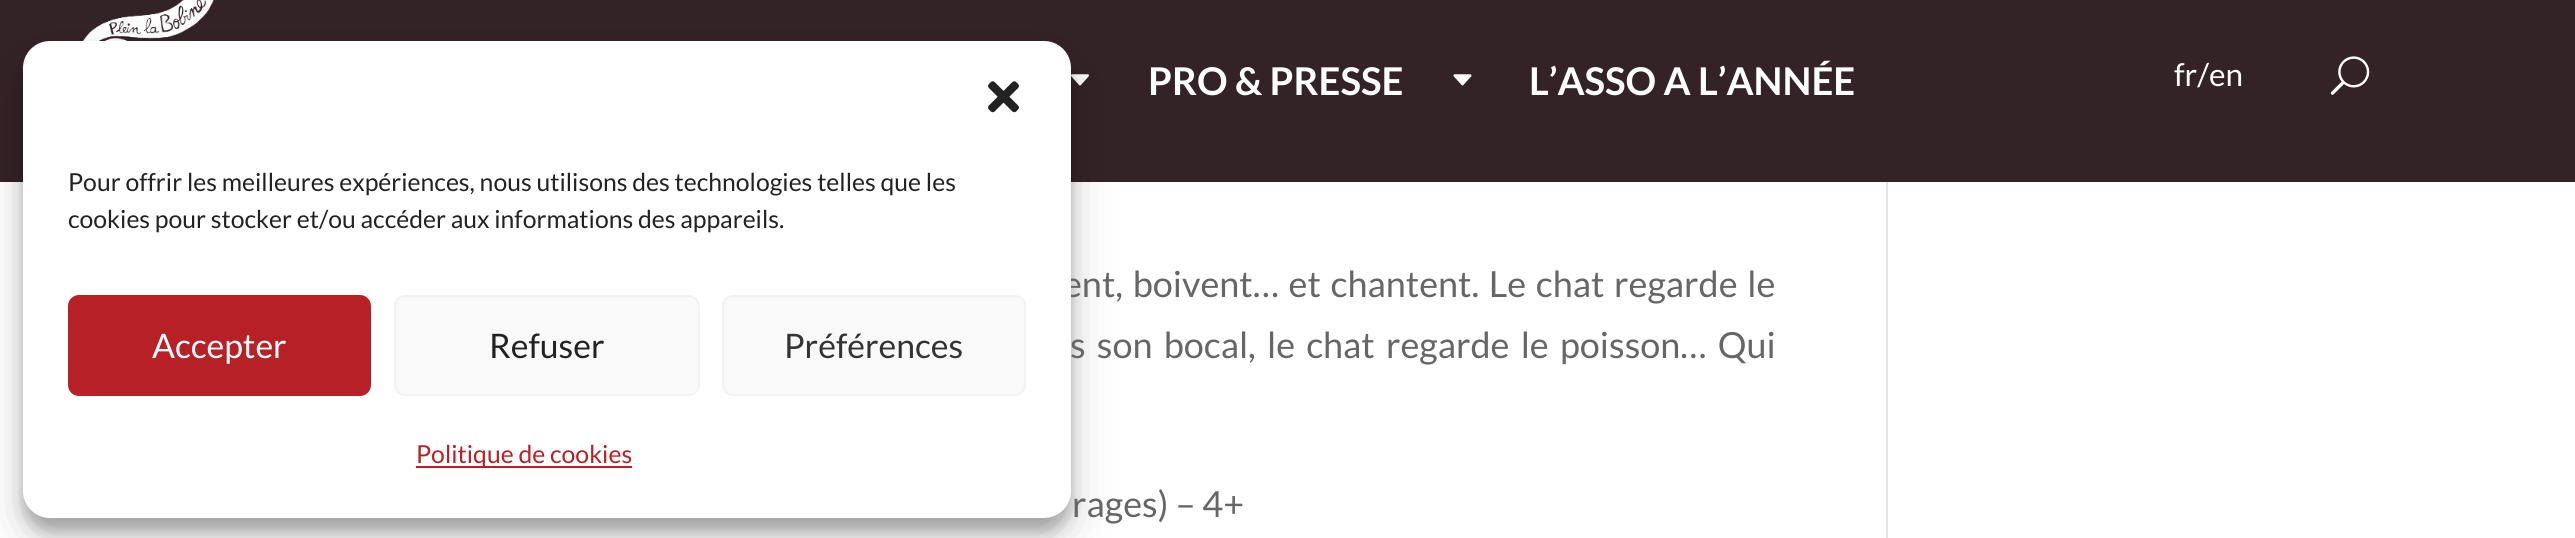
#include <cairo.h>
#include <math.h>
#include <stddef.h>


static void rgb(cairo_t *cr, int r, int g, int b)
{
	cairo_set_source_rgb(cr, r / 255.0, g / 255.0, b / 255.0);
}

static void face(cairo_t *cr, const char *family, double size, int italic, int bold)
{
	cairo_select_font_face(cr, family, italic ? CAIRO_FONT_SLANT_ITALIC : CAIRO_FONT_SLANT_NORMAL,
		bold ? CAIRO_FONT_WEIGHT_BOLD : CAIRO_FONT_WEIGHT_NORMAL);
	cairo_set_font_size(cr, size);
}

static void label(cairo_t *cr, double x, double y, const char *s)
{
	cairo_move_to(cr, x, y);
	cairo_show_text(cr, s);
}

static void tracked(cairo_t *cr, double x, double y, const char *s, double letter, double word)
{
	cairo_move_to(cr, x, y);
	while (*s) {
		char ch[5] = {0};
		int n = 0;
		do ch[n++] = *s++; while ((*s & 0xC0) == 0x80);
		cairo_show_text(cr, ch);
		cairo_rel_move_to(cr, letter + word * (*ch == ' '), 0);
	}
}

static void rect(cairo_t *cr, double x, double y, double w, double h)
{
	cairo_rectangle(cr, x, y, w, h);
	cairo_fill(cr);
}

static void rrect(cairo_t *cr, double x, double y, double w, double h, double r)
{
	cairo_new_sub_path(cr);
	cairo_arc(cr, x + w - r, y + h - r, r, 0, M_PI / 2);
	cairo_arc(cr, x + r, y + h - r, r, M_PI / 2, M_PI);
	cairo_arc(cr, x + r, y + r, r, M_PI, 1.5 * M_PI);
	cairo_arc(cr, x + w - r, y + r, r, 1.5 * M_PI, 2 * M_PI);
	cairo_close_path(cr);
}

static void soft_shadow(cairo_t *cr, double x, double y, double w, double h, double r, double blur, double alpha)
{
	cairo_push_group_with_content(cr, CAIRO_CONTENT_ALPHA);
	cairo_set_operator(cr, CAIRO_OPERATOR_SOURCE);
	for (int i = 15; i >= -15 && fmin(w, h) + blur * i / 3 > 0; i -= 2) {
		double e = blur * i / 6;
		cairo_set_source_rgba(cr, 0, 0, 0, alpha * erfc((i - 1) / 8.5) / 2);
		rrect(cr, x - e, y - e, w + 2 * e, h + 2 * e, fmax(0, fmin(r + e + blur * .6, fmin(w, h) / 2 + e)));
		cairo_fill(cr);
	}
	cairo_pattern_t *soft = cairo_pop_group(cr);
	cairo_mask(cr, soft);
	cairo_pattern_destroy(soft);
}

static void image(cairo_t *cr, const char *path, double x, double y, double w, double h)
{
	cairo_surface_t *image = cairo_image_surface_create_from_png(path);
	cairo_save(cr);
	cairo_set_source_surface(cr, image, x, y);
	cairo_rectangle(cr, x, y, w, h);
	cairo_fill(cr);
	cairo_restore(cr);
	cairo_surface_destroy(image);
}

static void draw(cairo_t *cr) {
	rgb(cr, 255, 255, 255);
	cairo_paint(cr);
	rgb(cr, 51, 35, 39);
	rect(cr, 0, 0, 2575, 182);
	image(cr, "image1.png", 83, 0, 131, 41);
	image(cr, "image2.png", 1071, 74, 18, 12);
	rgb(cr, 0, 0, 0);
	soft_shadow(cr, 23, 54, 1048, 477, 27, 7, 0.23);
	soft_shadow(cr, 23, 63, 1048, 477, 27, 22.5, 0.19);
	face(cr, "Lato", 36, 0, 0);
	rgb(cr, 102, 102, 102);
	tracked(cr, 1063, 297, "ent, boivent… et chantent. Le chat regarde le", 0, 2.75);
	tracked(cr, 1070, 358, "s son bocal, le chat regarde le poisson… Qui", 0, 4.25);
	rgb(cr, 255, 255, 255);
	rrect(cr, 23, 41, 1048, 477, 27);
	cairo_fill(cr);
	image(cr, "image0.png", 988, 81, 31, 32);
	face(cr, "Lato", 24.75, 0, 0);
	rgb(cr, 34, 34, 34);
	label(cr, 68, 191, "Pour offrir les meilleures expériences, nous utilisons des technologies telles que les");
	label(cr, 68, 228, "cookies pour stocker et/ou accéder aux informations des appareils.");
	rgb(cr, 183, 32, 37);
	rrect(cr, 69, 296, 301, 99, 10);
	cairo_fill_preserve(cr);
	cairo_stroke(cr);
	face(cr, "Lato", 33.75, 0, 0);
	rgb(cr, 255, 255, 255);
	label(cr, 152, 358, "Accepter");
	rgb(cr, 249, 249, 249);
	rrect(cr, 395, 296, 304, 99, 10);
	cairo_fill_preserve(cr);
	rgb(cr, 242, 242, 242);
	cairo_stroke(cr);
	rgb(cr, 34, 34, 34);
	label(cr, 489, 358, "Refuser");
	rgb(cr, 249, 249, 249);
	rrect(cr, 723, 296, 302, 99, 10);
	cairo_fill_preserve(cr);
	rgb(cr, 242, 242, 242);
	cairo_stroke(cr);
	rgb(cr, 51, 51, 51);
	label(cr, 784, 358, "Préférences");
	rgb(cr, 183, 32, 37);
	rect(cr, 416, 466, 216, 2);
	face(cr, "Lato", 24.75, 0, 0);
	label(cr, 416, 463, "Politique de cookies");
	face(cr, "Lato", 38.25, 0, 1);
	rgb(cr, 255, 255, 255);
	label(cr, 1148, 95, "PRO & PRESSE");
	image(cr, "image3.png", 1453, 74, 19, 12);
	label(cr, 1529, 95, "L’ASSO A L’ANNÉE");
	face(cr, "Lato", 31.5, 0, 0);
	label(cr, 2174, 86, "fr/en");
	image(cr, "image4.png", 2330, 56, 40, 39);
	face(cr, "Lato", 36, 0, 0);
	rgb(cr, 102, 102, 102);
	label(cr, 1072, 517, "rages) – 4+");
	rgb(cr, 226, 226, 226);
	rect(cr, 1886, 182, 2, 356);
}

int main(void) {
	cairo_surface_t *surface = cairo_image_surface_create(CAIRO_FORMAT_RGB24, 2575, 538);
	cairo_t *cr = cairo_create(surface);
	cairo_font_options_t *options = cairo_font_options_create();
	cairo_font_options_set_hint_metrics(options, CAIRO_HINT_METRICS_OFF);
	cairo_font_options_set_hint_style(options, CAIRO_HINT_STYLE_NONE);
	cairo_set_font_options(cr, options);
	cairo_set_miter_limit(cr, 4);
	draw(cr);
	cairo_surface_write_to_png(surface, "render.png");
	cairo_font_options_destroy(options);
	cairo_destroy(cr);
	cairo_surface_destroy(surface);
	return 0;
}
